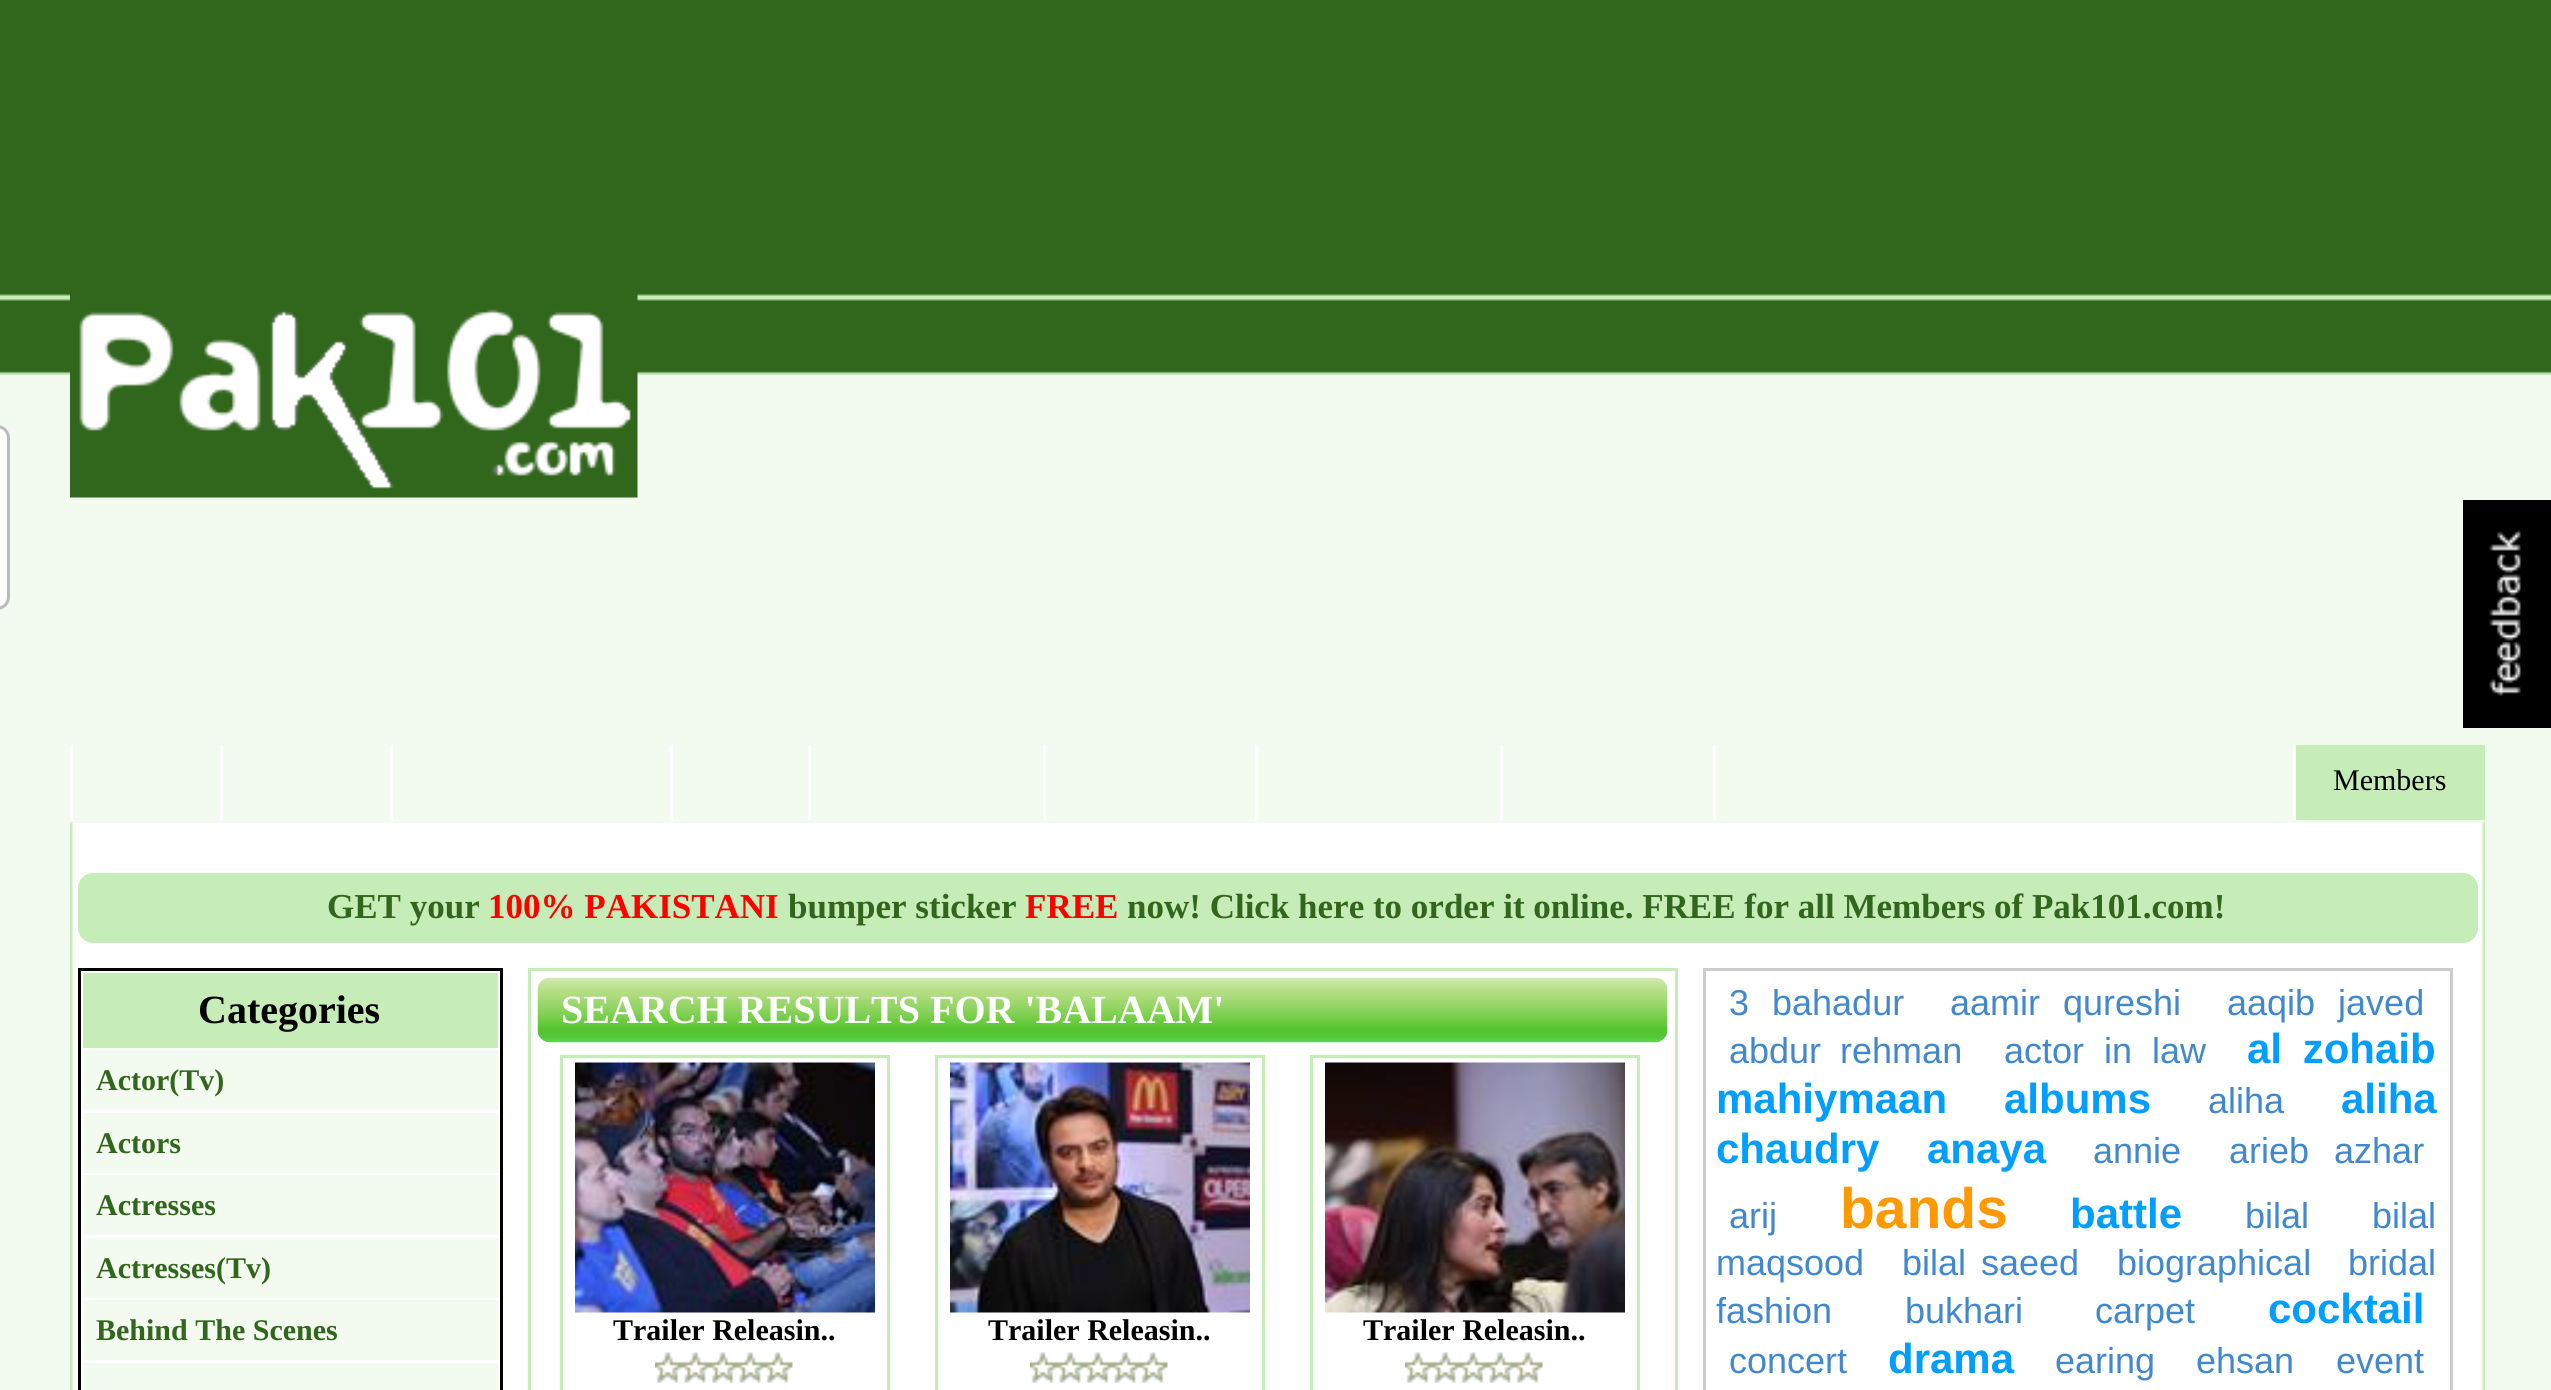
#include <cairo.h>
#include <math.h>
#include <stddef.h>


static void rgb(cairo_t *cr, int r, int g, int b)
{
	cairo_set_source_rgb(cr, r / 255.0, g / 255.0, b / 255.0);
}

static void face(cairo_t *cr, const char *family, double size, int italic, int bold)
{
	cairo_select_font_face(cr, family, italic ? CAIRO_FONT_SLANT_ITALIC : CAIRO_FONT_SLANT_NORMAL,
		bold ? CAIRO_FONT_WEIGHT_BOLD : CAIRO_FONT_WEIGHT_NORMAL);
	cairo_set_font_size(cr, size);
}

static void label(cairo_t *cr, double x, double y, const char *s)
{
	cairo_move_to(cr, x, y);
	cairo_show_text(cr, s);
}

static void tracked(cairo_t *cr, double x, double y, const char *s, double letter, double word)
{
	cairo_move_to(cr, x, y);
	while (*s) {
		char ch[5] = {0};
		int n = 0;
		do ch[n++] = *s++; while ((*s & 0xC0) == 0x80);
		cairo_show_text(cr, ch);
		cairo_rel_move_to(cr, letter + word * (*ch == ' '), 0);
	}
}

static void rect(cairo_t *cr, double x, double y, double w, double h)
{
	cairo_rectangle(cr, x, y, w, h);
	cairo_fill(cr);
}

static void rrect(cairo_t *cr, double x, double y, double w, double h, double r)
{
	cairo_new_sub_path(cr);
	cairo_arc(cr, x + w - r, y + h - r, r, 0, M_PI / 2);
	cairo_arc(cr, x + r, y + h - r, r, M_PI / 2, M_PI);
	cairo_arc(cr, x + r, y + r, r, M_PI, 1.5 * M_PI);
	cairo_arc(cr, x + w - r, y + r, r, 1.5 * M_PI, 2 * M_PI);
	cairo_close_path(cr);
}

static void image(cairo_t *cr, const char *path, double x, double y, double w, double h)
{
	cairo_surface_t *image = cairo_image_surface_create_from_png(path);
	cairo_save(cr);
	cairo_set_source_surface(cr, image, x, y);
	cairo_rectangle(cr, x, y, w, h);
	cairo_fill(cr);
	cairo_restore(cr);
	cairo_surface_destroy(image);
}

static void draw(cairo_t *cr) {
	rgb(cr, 243, 250, 239);
	cairo_paint(cr);
	image(cr, "image0.png", 0, 0, 2551, 375);
	rgb(cr, 255, 255, 255);
	rrect(cr, -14.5, 426.5, 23, 182, 11.5);
	cairo_fill_preserve(cr);
	rgb(cr, 187, 187, 187);
	cairo_set_line_width(cr, 3);
	cairo_stroke(cr);
	rgb(cr, 0, 0, 0);
	rect(cr, 2463, 500, 88, 228);
	image(cr, "image1.png", 2489, 529, 32, 167);
	image(cr, "image2.png", 70, 294, 568, 204);
	rgb(cr, 255, 255, 255);
	rect(cr, 70, 745, 3, 75);
	rect(cr, 220, 745, 3, 75);
	rect(cr, 390, 745, 3, 75);
	rect(cr, 670, 745, 3, 75);
	rect(cr, 808, 745, 3, 75);
	rect(cr, 1043, 745, 3, 75);
	rect(cr, 1255, 745, 3, 75);
	rect(cr, 1500, 745, 3, 75);
	rect(cr, 1713, 745, 3, 75);
	rgb(cr, 198, 236, 183);
	rect(cr, 2296, 745, 189, 75);
	rgb(cr, 255, 255, 255);
	rect(cr, 2293, 745, 3, 75);
	face(cr, "Liberation Serif", 30, 0, 0);
	rgb(cr, 0, 0, 0);
	label(cr, 2333, 790, "Members");
	rgb(cr, 255, 255, 255);
	rect(cr, 71, 823, 2413, 567);
	image(cr, "image3.png", 70, 822, 2415, 568);
	rgb(cr, 198, 236, 183);
	rrect(cr, 79.5, 874.5, 2397, 67, 13.5);
	cairo_fill_preserve(cr);
	cairo_stroke(cr);
	face(cr, "Liberation Serif", 35, 0, 1);
	rgb(cr, 49, 103, 28);
	label(cr, 327, 918, "GET your");
	rgb(cr, 255, 0, 0);
	label(cr, 488, 918, "100% PAKISTANI");
	rgb(cr, 49, 103, 28);
	label(cr, 788, 918, "bumper sticker");
	rgb(cr, 255, 0, 0);
	label(cr, 1025, 918, "FREE");
	rgb(cr, 49, 103, 28);
	label(cr, 1127, 918, "now! Click here to order it online. FREE for all Members of Pak101.com!");
	cairo_rectangle(cr, 79.5, 969.5, 422, 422);
	rgb(cr, 0, 0, 0);
	cairo_stroke(cr);
	rgb(cr, 198, 236, 183);
	rect(cr, 83, 973, 415, 75);
	face(cr, "Liberation Serif", 40, 0, 1);
	rgb(cr, 0, 0, 0);
	label(cr, 198, 1023, "Categories");
	rgb(cr, 243, 250, 239);
	rect(cr, 83, 1050, 415, 60);
	face(cr, "Liberation Serif", 30, 0, 1);
	rgb(cr, 49, 103, 28);
	label(cr, 96, 1090, "Actor(Tv)");
	rgb(cr, 243, 250, 239);
	rect(cr, 83, 1113, 415, 60);
	rgb(cr, 49, 103, 28);
	label(cr, 96, 1153, "Actors");
	rgb(cr, 243, 250, 239);
	rect(cr, 83, 1175, 415, 60);
	rgb(cr, 49, 103, 28);
	label(cr, 96, 1215, "Actresses");
	rgb(cr, 243, 250, 239);
	rect(cr, 83, 1238, 415, 60);
	rgb(cr, 49, 103, 28);
	label(cr, 96, 1278, "Actresses(Tv)");
	rgb(cr, 243, 250, 239);
	rect(cr, 83, 1300, 415, 60);
	rgb(cr, 49, 103, 28);
	label(cr, 96, 1340, "Behind The Scenes");
	rgb(cr, 243, 250, 239);
	rect(cr, 83, 1363, 415, 27);
	cairo_rectangle(cr, 529.5, 969.5, 1147, 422);
	rgb(cr, 198, 236, 183);
	cairo_stroke(cr);
	image(cr, "image4.png", 537, 977, 1131, 66);
	face(cr, "Liberation Serif", 40, 0, 1);
	rgb(cr, 255, 255, 255);
	label(cr, 561, 1023, "SEARCH RESULTS FOR 'BALAAM'");
	cairo_rectangle(cr, 561.5, 1056.5, 327, 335);
	rgb(cr, 198, 236, 183);
	cairo_stroke(cr);
	image(cr, "image5.png", 575, 1062, 300, 251);
	face(cr, "Liberation Serif", 30, 0, 1);
	rgb(cr, 0, 0, 0);
	label(cr, 613, 1340, "Trailer Releasin..");
	image(cr, "image6.png", 655, 1352, 138, 31);
	cairo_rectangle(cr, 936.5, 1056.5, 327, 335);
	rgb(cr, 198, 236, 183);
	cairo_stroke(cr);
	image(cr, "image7.png", 950, 1062, 300, 251);
	rgb(cr, 0, 0, 0);
	label(cr, 988, 1340, "Trailer Releasin..");
	image(cr, "image8.png", 1030, 1352, 138, 31);
	cairo_rectangle(cr, 1311.5, 1056.5, 327, 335);
	rgb(cr, 198, 236, 183);
	cairo_stroke(cr);
	image(cr, "image9.png", 1325, 1062, 300, 251);
	rgb(cr, 0, 0, 0);
	label(cr, 1363, 1340, "Trailer Releasin..");
	image(cr, "image10.png", 1405, 1352, 138, 31);
	cairo_rectangle(cr, 1704.5, 969.5, 747, 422);
	rgb(cr, 204, 204, 204);
	cairo_stroke(cr);
	face(cr, "Liberation Sans", 36, 0, 0);
	rgb(cr, 65, 136, 207);
	tracked(cr, 1729, 1015, "3 bahadur", 0, 13);
	tracked(cr, 1950, 1015, "aamir qureshi", 0, 13);
	tracked(cr, 2227, 1015, "aaqib javed", 0, 13);
	tracked(cr, 1729, 1063, "abdur rehman", 0, 9);
	tracked(cr, 2004, 1063, "actor in law", 0, 10);
	face(cr, "Liberation Sans", 42, 0, 1);
	rgb(cr, 0, 158, 255);
	tracked(cr, 2247, 1063, "al zohaib", 0, 9);
	label(cr, 1716, 1113, "mahiymaan");
	label(cr, 2004, 1113, "albums");
	face(cr, "Liberation Sans", 36, 0, 0);
	rgb(cr, 65, 136, 207);
	label(cr, 2208, 1113, "aliha");
	face(cr, "Liberation Sans", 42, 0, 1);
	rgb(cr, 0, 158, 255);
	label(cr, 2341, 1113, "aliha");
	label(cr, 1716, 1163, "chaudry");
	label(cr, 1927, 1163, "anaya");
	face(cr, "Liberation Sans", 36, 0, 0);
	rgb(cr, 65, 136, 207);
	label(cr, 2093, 1163, "annie");
	tracked(cr, 2229, 1163, "arieb azhar", 0, 15);
	label(cr, 1729, 1228, "arij");
	face(cr, "Liberation Sans", 57, 0, 1);
	rgb(cr, 255, 153, 0);
	label(cr, 1840, 1228, "bands");
	face(cr, "Liberation Sans", 42, 0, 1);
	rgb(cr, 0, 158, 255);
	label(cr, 2070, 1228, "battle");
	face(cr, "Liberation Sans", 36, 0, 0);
	rgb(cr, 65, 136, 207);
	label(cr, 2245, 1228, "bilal");
	label(cr, 2372, 1228, "bilal");
	label(cr, 1716, 1275, "maqsood");
	tracked(cr, 1902, 1275, "bilal saeed", 0, 5);
	label(cr, 2117, 1275, "biographical");
	label(cr, 2348, 1275, "bridal");
	label(cr, 1716, 1323, "fashion");
	label(cr, 1905, 1323, "bukhari");
	label(cr, 2095, 1323, "carpet");
	face(cr, "Liberation Sans", 42, 0, 1);
	rgb(cr, 0, 158, 255);
	label(cr, 2268, 1323, "cocktail");
	face(cr, "Liberation Sans", 36, 0, 0);
	rgb(cr, 65, 136, 207);
	label(cr, 1729, 1373, "concert");
	face(cr, "Liberation Sans", 42, 0, 1);
	rgb(cr, 0, 158, 255);
	label(cr, 1888, 1373, "drama");
	face(cr, "Liberation Sans", 36, 0, 0);
	rgb(cr, 65, 136, 207);
	label(cr, 2055, 1373, "earing");
	label(cr, 2196, 1373, "ehsan");
	label(cr, 2336, 1373, "event");
}

int main(void) {
	cairo_surface_t *surface = cairo_image_surface_create(CAIRO_FORMAT_RGB24, 2551, 1390);
	cairo_t *cr = cairo_create(surface);
	cairo_font_options_t *options = cairo_font_options_create();
	cairo_font_options_set_hint_metrics(options, CAIRO_HINT_METRICS_OFF);
	cairo_font_options_set_hint_style(options, CAIRO_HINT_STYLE_NONE);
	cairo_set_font_options(cr, options);
	cairo_set_miter_limit(cr, 4);
	draw(cr);
	cairo_surface_write_to_png(surface, "render.png");
	cairo_font_options_destroy(options);
	cairo_destroy(cr);
	cairo_surface_destroy(surface);
	return 0;
}
